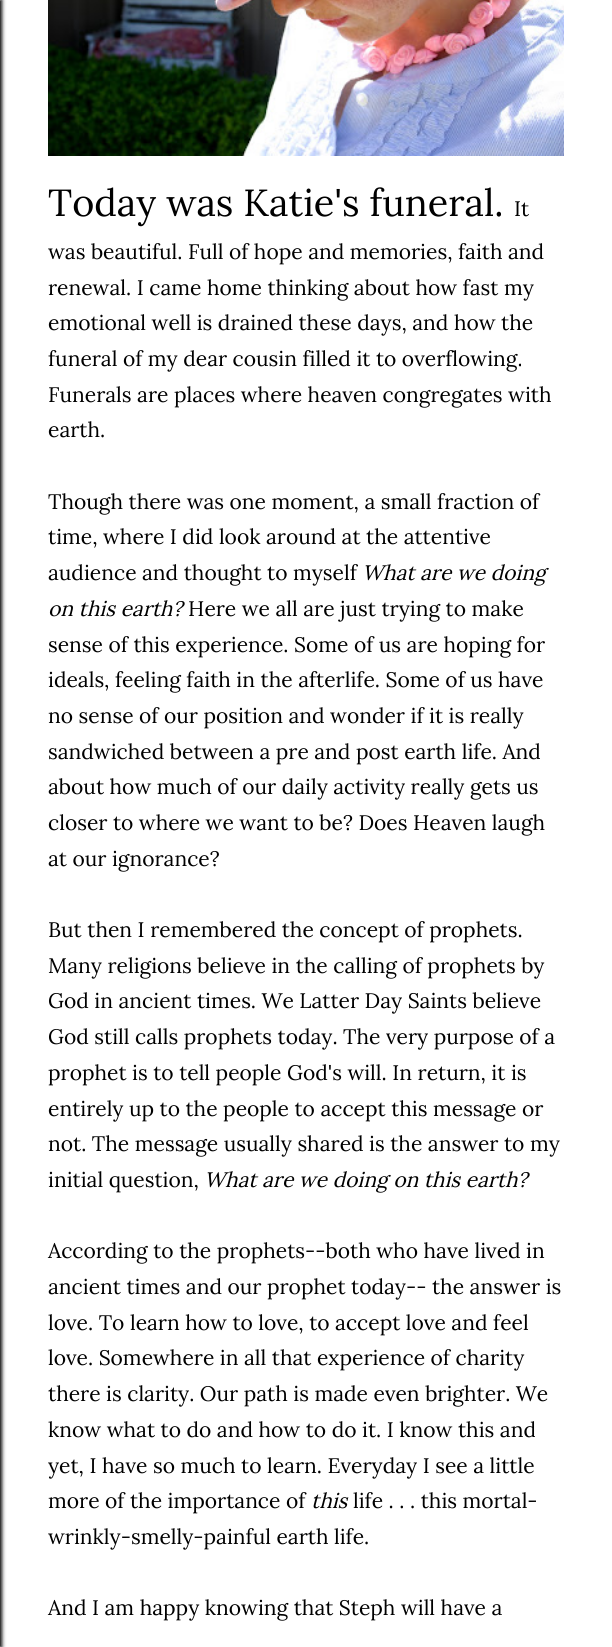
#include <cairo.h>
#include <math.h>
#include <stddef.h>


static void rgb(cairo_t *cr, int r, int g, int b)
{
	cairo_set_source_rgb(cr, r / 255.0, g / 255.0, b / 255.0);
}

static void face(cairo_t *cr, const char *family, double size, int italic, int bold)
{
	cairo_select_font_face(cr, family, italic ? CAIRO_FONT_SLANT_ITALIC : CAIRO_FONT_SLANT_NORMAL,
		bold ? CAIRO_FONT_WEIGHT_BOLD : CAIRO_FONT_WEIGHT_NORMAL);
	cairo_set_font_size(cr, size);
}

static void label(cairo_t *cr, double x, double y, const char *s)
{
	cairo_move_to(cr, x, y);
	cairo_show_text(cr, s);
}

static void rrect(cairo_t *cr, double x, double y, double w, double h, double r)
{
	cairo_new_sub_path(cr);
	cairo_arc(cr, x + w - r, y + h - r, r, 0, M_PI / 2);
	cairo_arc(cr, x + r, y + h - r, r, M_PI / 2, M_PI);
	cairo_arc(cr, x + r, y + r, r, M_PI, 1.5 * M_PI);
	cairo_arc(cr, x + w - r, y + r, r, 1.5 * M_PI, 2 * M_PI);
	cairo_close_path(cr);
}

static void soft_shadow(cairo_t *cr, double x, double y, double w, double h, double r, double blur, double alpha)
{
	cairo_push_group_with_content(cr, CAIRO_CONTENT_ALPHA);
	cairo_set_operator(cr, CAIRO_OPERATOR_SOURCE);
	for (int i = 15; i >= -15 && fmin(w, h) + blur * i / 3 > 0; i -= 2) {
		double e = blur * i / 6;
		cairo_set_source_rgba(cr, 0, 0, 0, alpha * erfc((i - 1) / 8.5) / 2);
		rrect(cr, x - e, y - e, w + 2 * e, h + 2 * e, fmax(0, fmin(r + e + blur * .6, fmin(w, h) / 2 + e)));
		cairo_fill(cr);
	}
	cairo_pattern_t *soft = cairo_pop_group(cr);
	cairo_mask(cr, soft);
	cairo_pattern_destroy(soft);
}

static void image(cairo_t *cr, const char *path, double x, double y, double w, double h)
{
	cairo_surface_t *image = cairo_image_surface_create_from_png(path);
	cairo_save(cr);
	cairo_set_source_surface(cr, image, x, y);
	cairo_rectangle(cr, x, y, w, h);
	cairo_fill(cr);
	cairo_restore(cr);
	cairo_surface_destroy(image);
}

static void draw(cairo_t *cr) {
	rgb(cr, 255, 255, 255);
	cairo_paint(cr);
	rgb(cr, 0, 0, 0);
	soft_shadow(cr, -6, 0, 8, 1647, 0, 2, 1);
	image(cr, "image0.png", 48, 0, 516, 156);
	face(cr, "Lora", 37.75, 0, 0);
	rgb(cr, 0, 0, 0);
	label(cr, 48, 216, "Today was Katie's funeral.");
	face(cr, "Lora", 21, 0, 0);
	label(cr, 514, 216, "It");
	label(cr, 48, 259, "was beautiful. Full of hope and memories, faith and");
	label(cr, 48, 295, "renewal. I came home thinking about how fast my");
	label(cr, 48, 330, "emotional well is drained these days, and how the");
	label(cr, 48, 366, "funeral of my dear cousin filled it to overflowing.");
	label(cr, 48, 402, "Funerals are places where heaven congregates with");
	label(cr, 48, 437, "earth.");
	label(cr, 48, 509, "Though there was one moment, a small fraction of");
	label(cr, 48, 544, "time, where I did look around at the attentive");
	label(cr, 48, 580, "audience and thought to myself");
	face(cr, "Lora", 21, 1, 0);
	label(cr, 362, 580, "What are we doing");
	label(cr, 48, 616, "on this earth?");
	face(cr, "Lora", 21, 0, 0);
	label(cr, 188, 616, "Here we all are just trying to make");
	label(cr, 48, 652, "sense of this experience. Some of us are hoping for");
	label(cr, 48, 687, "ideals, feeling faith in the afterlife. Some of us have");
	label(cr, 48, 723, "no sense of our position and wonder if it is really");
	label(cr, 48, 759, "sandwiched between a pre and post earth life. And");
	label(cr, 48, 794, "about how much of our daily activity really gets us");
	label(cr, 48, 830, "closer to where we want to be? Does Heaven laugh");
	label(cr, 48, 866, "at our ignorance?");
	label(cr, 48, 937, "But then I remembered the concept of prophets.");
	label(cr, 48, 973, "Many religions believe in the calling of prophets by");
	label(cr, 48, 1008, "God in ancient times. We Latter Day Saints believe");
	label(cr, 48, 1044, "God still calls prophets today. The very purpose of a");
	label(cr, 48, 1080, "prophet is to tell people God's will. In return, it is");
	label(cr, 48, 1116, "entirely up to the people to accept this message or");
	label(cr, 48, 1151, "not. The message usually shared is the answer to my");
	label(cr, 48, 1187, "initial question,");
	face(cr, "Lora", 21, 1, 0);
	label(cr, 204, 1187, "What are we doing on this earth?");
	face(cr, "Lora", 21, 0, 0);
	label(cr, 48, 1258, "According to the prophets--both who have lived in");
	label(cr, 48, 1294, "ancient times and our prophet today-- the answer is");
	label(cr, 48, 1330, "love. To learn how to love, to accept love and feel");
	label(cr, 48, 1365, "love. Somewhere in all that experience of charity");
	label(cr, 48, 1401, "there is clarity. Our path is made even brighter. We");
	label(cr, 48, 1437, "know what to do and how to do it. I know this and");
	label(cr, 48, 1473, "yet, I have so much to learn. Everyday I see a little");
	label(cr, 48, 1508, "more of the importance of");
	face(cr, "Lora", 21, 1, 0);
	label(cr, 311, 1508, "this");
	face(cr, "Lora", 21, 0, 0);
	label(cr, 353, 1508, "life . . . this mortal-");
	label(cr, 48, 1544, "wrinkly-smelly-painful earth life.");
	label(cr, 48, 1615, "And I am happy knowing that Steph will have a");
}

int main(void) {
	cairo_surface_t *surface = cairo_image_surface_create(CAIRO_FORMAT_RGB24, 612, 1647);
	cairo_t *cr = cairo_create(surface);
	cairo_font_options_t *options = cairo_font_options_create();
	cairo_font_options_set_hint_metrics(options, CAIRO_HINT_METRICS_OFF);
	cairo_font_options_set_hint_style(options, CAIRO_HINT_STYLE_NONE);
	cairo_set_font_options(cr, options);
	cairo_set_miter_limit(cr, 4);
	draw(cr);
	cairo_surface_write_to_png(surface, "render.png");
	cairo_font_options_destroy(options);
	cairo_destroy(cr);
	cairo_surface_destroy(surface);
	return 0;
}
